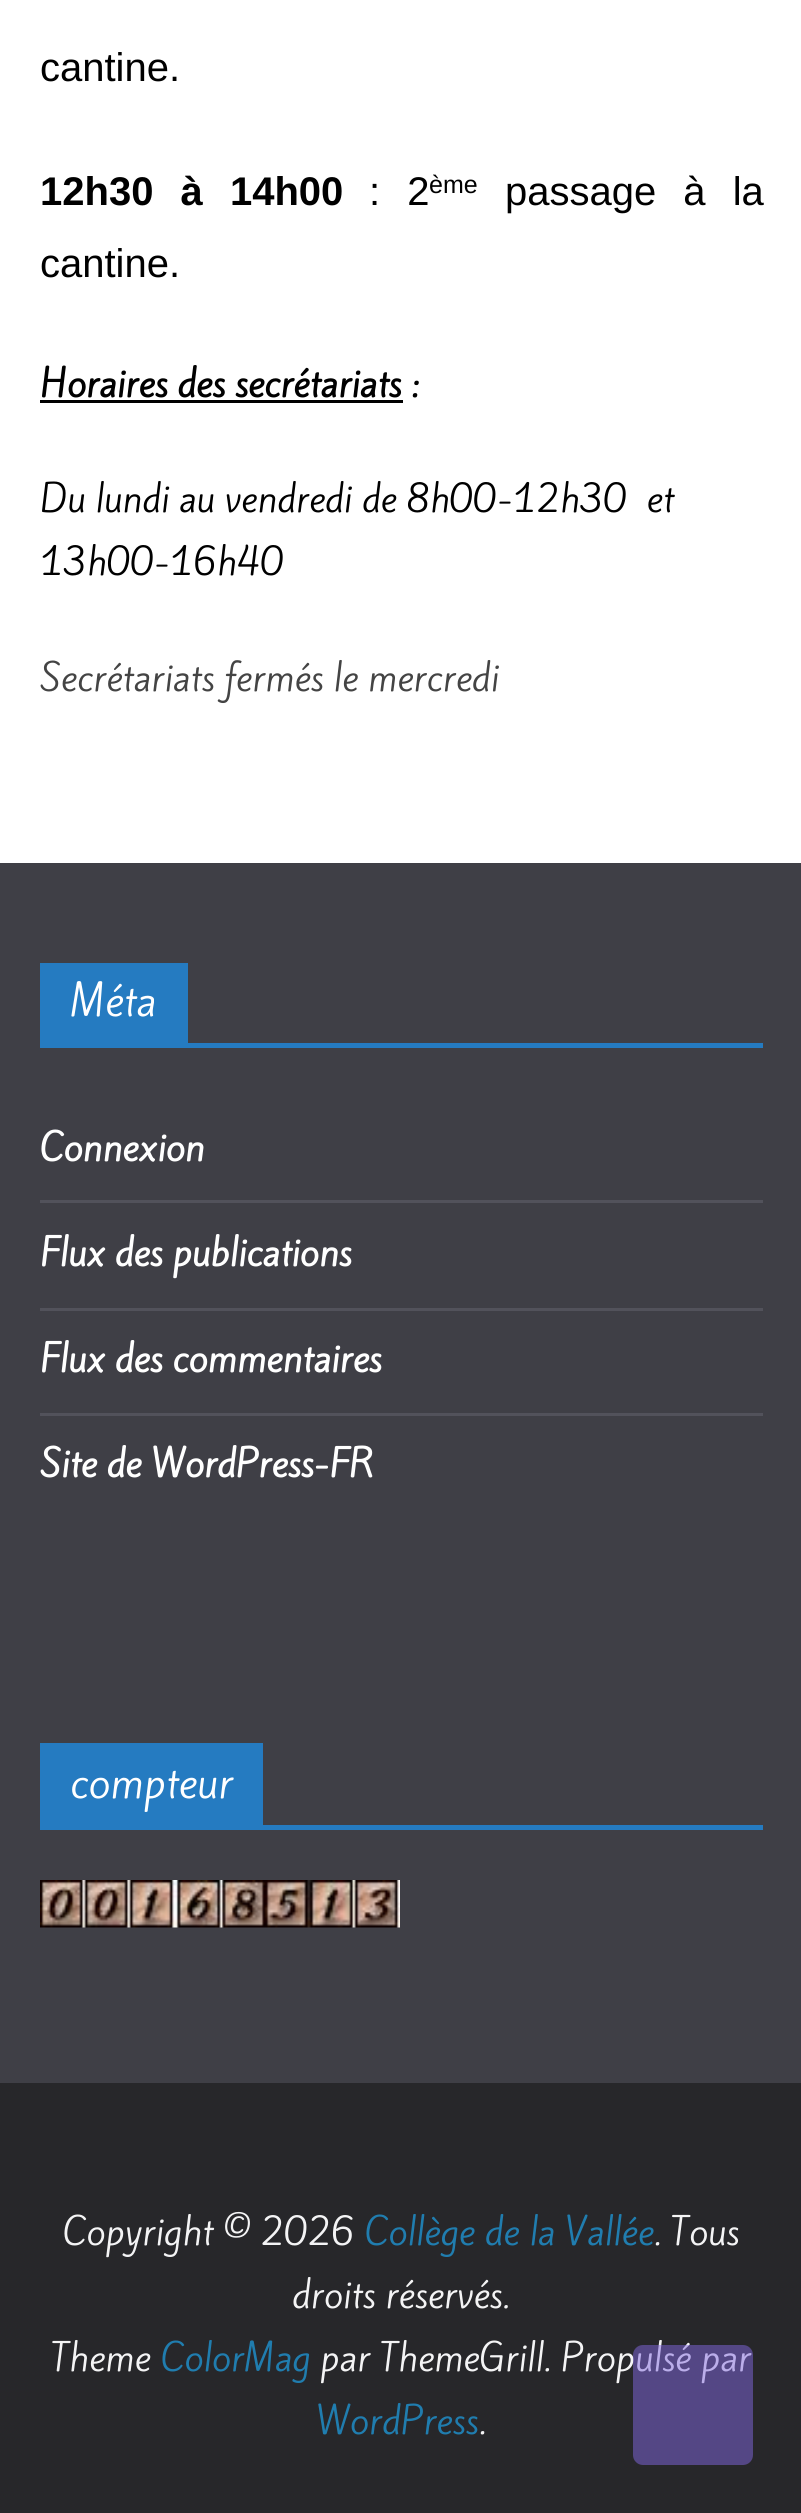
#include <cairo.h>
#include <math.h>
#include <stddef.h>


static void rgb(cairo_t *cr, int r, int g, int b)
{
	cairo_set_source_rgb(cr, r / 255.0, g / 255.0, b / 255.0);
}

static void face(cairo_t *cr, const char *family, double size, int italic, int bold)
{
	cairo_select_font_face(cr, family, italic ? CAIRO_FONT_SLANT_ITALIC : CAIRO_FONT_SLANT_NORMAL,
		bold ? CAIRO_FONT_WEIGHT_BOLD : CAIRO_FONT_WEIGHT_NORMAL);
	cairo_set_font_size(cr, size);
}

static void label(cairo_t *cr, double x, double y, const char *s)
{
	cairo_move_to(cr, x, y);
	cairo_show_text(cr, s);
}

static void tracked(cairo_t *cr, double x, double y, const char *s, double letter, double word)
{
	cairo_move_to(cr, x, y);
	while (*s) {
		char ch[5] = {0};
		int n = 0;
		do ch[n++] = *s++; while ((*s & 0xC0) == 0x80);
		cairo_show_text(cr, ch);
		cairo_rel_move_to(cr, letter + word * (*ch == ' '), 0);
	}
}

static void rect(cairo_t *cr, double x, double y, double w, double h)
{
	cairo_rectangle(cr, x, y, w, h);
	cairo_fill(cr);
}

static void rrect(cairo_t *cr, double x, double y, double w, double h, double r)
{
	cairo_new_sub_path(cr);
	cairo_arc(cr, x + w - r, y + h - r, r, 0, M_PI / 2);
	cairo_arc(cr, x + r, y + h - r, r, M_PI / 2, M_PI);
	cairo_arc(cr, x + r, y + r, r, M_PI, 1.5 * M_PI);
	cairo_arc(cr, x + w - r, y + r, r, 1.5 * M_PI, 2 * M_PI);
	cairo_close_path(cr);
}

static void image(cairo_t *cr, const char *path, double x, double y, double w, double h)
{
	cairo_surface_t *image = cairo_image_surface_create_from_png(path);
	cairo_save(cr);
	cairo_set_source_surface(cr, image, x, y);
	cairo_rectangle(cr, x, y, w, h);
	cairo_fill(cr);
	cairo_restore(cr);
	cairo_surface_destroy(image);
}

static void draw(cairo_t *cr) {
	rgb(cr, 255, 255, 255);
	cairo_paint(cr);
	face(cr, "Liberation Sans", 40, 0, 0);
	rgb(cr, 0, 0, 0);
	label(cr, 40, 81, "cantine.");
	face(cr, "Liberation Sans", 40, 0, 1);
	tracked(cr, 40, 205, "12h30 à 14h00", 0, 16);
	face(cr, "Liberation Sans", 40, 0, 0);
	tracked(cr, 369, 205, ": 2", 0, 16);
	face(cr, "Liberation Sans", 25, 0, 0);
	label(cr, 429, 193, "ème");
	face(cr, "Liberation Sans", 40, 0, 0);
	tracked(cr, 505, 205, "passage à la", 0, 16);
	label(cr, 40, 277, "cantine.");
	face(cr, "Kite One", 35, 0, 1);
	label(cr, 40, 397, "Horaires des secrétariats :");
	rect(cr, 40, 400, 363, 3);
	face(cr, "Kite One", 35, 0, 0);
	label(cr, 40, 512, "Du lundi au vendredi de 8h00-12h30  et");
	label(cr, 40, 575, "13h00-16h40");
	rgb(cr, 68, 68, 68);
	label(cr, 40, 691, "Secrétariats fermés le mercredi");
	rgb(cr, 63, 63, 70);
	rect(cr, 0, 863, 801, 1220);
	rgb(cr, 37, 123, 193);
	rect(cr, 40, 1043, 723, 5);
	rect(cr, 40, 963, 148, 80);
	face(cr, "Kite One", 40, 0, 0);
	rgb(cr, 255, 255, 255);
	label(cr, 70, 1016, "Méta");
	rgb(cr, 82, 82, 91);
	rect(cr, 40, 1200, 723, 3);
	face(cr, "Kite One", 35, 0, 1);
	rgb(cr, 255, 255, 255);
	label(cr, 40, 1161, "Connexion");
	rgb(cr, 82, 82, 91);
	rect(cr, 40, 1308, 723, 3);
	rgb(cr, 255, 255, 255);
	label(cr, 40, 1266, "Flux des publications");
	rgb(cr, 82, 82, 91);
	rect(cr, 40, 1413, 723, 3);
	rgb(cr, 255, 255, 255);
	label(cr, 40, 1372, "Flux des commentaires");
	label(cr, 40, 1477, "Site de WordPress-FR");
	rgb(cr, 37, 123, 193);
	rect(cr, 40, 1825, 723, 5);
	rect(cr, 40, 1743, 223, 82);
	face(cr, "Kite One", 40, 0, 0);
	rgb(cr, 255, 255, 255);
	label(cr, 70, 1798, "compteur");
	image(cr, "image0.png", 40, 1880, 360, 48);
	rgb(cr, 39, 39, 42);
	rect(cr, 0, 2083, 801, 430);
	face(cr, "Kite One", 35, 0, 0);
	rgb(cr, 244, 244, 245);
	label(cr, 63, 2245, "Copyright © 2026");
	rgb(cr, 32, 125, 175);
	label(cr, 365, 2245, "Collège de la Vallée");
	rgb(cr, 244, 244, 245);
	label(cr, 654, 2245, ". Tous");
	label(cr, 292, 2308, "droits réservés.");
	label(cr, 51, 2371, "Theme");
	rgb(cr, 32, 125, 175);
	label(cr, 161, 2371, "ColorMag");
	rgb(cr, 244, 244, 245);
	label(cr, 320, 2371, "par ThemeGrill. Propulsé par");
	rgb(cr, 32, 125, 175);
	label(cr, 316, 2434, "WordPress");
	rgb(cr, 244, 244, 245);
	label(cr, 479, 2434, ".");
	cairo_set_source_rgba(cr, 0.51, 0.412, 0.875, 0.5);
	rrect(cr, 633, 2345, 120, 120, 10);
	cairo_fill(cr);
}

int main(void) {
	cairo_surface_t *surface = cairo_image_surface_create(CAIRO_FORMAT_RGB24, 801, 2513);
	cairo_t *cr = cairo_create(surface);
	cairo_font_options_t *options = cairo_font_options_create();
	cairo_font_options_set_hint_metrics(options, CAIRO_HINT_METRICS_OFF);
	cairo_font_options_set_hint_style(options, CAIRO_HINT_STYLE_NONE);
	cairo_set_font_options(cr, options);
	cairo_set_miter_limit(cr, 4);
	draw(cr);
	cairo_surface_write_to_png(surface, "render.png");
	cairo_font_options_destroy(options);
	cairo_destroy(cr);
	cairo_surface_destroy(surface);
	return 0;
}
